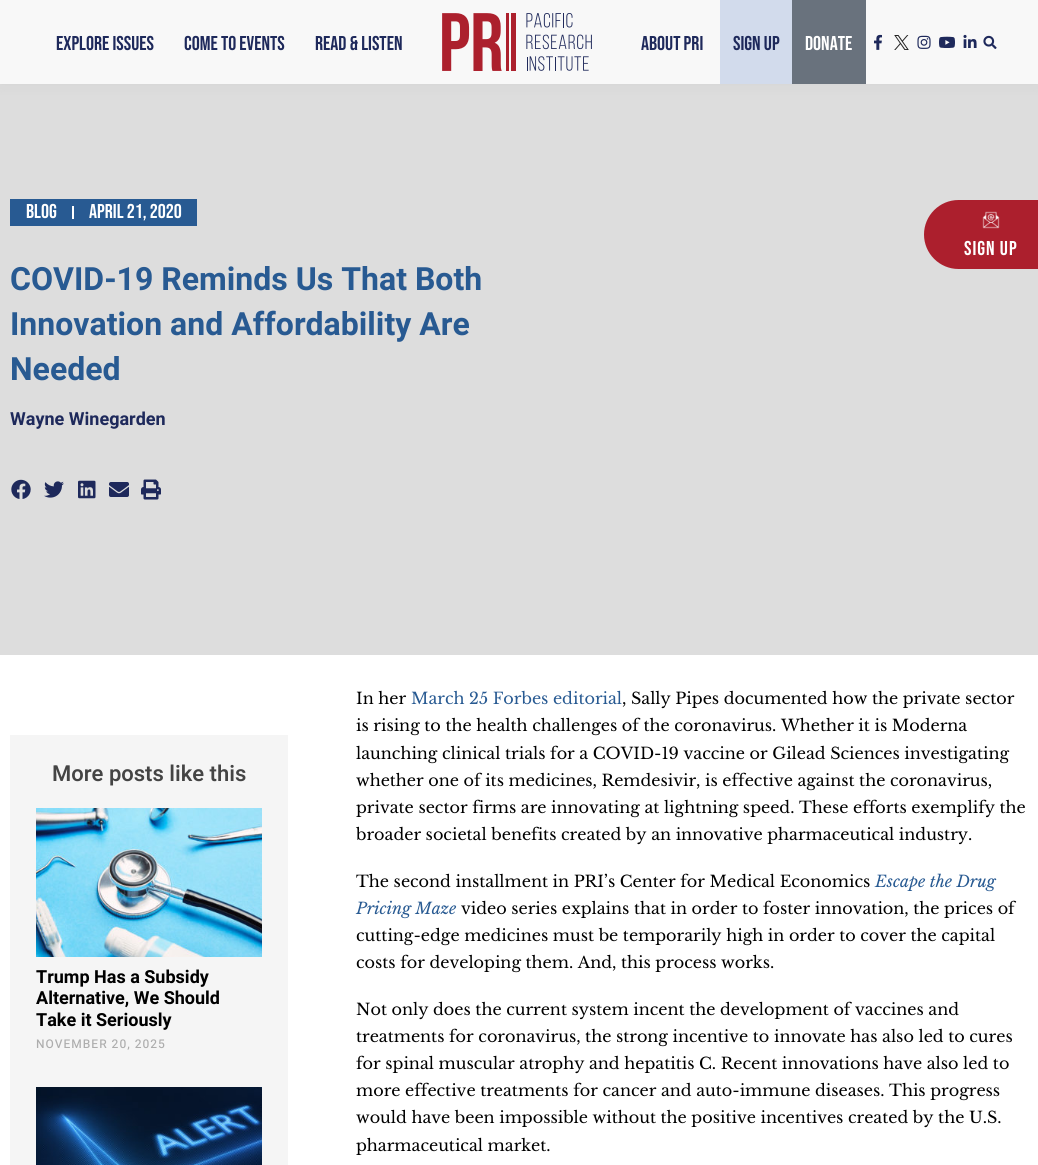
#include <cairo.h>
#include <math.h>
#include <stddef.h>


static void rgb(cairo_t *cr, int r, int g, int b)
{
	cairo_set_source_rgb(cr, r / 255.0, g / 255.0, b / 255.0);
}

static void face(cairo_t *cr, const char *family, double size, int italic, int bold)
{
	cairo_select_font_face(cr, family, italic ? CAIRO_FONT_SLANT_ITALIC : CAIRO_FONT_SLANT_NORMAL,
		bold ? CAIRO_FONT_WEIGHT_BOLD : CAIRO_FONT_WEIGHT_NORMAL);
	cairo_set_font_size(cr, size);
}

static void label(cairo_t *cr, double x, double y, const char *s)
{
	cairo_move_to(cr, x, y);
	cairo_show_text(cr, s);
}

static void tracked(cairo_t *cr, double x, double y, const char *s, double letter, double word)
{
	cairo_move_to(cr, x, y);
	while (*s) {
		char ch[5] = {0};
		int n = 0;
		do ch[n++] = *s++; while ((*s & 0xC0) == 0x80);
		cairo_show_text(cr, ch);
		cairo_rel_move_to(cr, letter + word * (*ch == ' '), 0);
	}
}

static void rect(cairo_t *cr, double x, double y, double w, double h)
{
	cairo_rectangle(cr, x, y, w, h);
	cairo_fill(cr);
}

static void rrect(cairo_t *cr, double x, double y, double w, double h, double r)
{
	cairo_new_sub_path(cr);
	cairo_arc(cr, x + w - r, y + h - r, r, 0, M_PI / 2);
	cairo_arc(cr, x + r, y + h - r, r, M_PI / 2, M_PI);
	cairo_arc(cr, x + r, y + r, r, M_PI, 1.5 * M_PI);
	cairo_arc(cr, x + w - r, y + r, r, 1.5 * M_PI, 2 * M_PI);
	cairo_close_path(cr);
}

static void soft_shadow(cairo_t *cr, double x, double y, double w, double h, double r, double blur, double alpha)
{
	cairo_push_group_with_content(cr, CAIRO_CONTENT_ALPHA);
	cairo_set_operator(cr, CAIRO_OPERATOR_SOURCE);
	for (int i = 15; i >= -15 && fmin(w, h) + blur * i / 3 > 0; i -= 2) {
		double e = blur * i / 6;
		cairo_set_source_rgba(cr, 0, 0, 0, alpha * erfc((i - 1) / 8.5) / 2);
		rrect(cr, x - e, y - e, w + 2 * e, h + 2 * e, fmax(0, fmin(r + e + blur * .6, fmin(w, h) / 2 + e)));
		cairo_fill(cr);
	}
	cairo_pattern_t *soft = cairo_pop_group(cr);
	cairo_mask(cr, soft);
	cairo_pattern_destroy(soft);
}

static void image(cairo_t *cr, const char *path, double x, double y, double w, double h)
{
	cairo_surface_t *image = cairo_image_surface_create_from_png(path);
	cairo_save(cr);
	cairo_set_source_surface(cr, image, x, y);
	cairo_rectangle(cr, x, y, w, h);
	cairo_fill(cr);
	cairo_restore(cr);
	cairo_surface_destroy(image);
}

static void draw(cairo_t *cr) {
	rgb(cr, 221, 221, 221);
	cairo_paint(cr);
	rgb(cr, 0, 0, 0);
	soft_shadow(cr, 0, 0, 1038, 84, 0, 7.5, 0.05);
	rgb(cr, 248, 248, 248);
	rect(cr, 0, 0, 1038, 84);
	face(cr, "Bebas Neue", 20, 0, 0);
	rgb(cr, 30, 41, 91);
	label(cr, 56, 50, "Explore Issues");
	label(cr, 184, 50, "Come to Events");
	label(cr, 315, 50, "Read & Listen");
	image(cr, "image0.png", 442, 13, 150, 58);
	label(cr, 641, 50, "About PRI");
	rgb(cr, 210, 219, 236);
	rect(cr, 720, 0, 72, 84);
	rgb(cr, 30, 41, 91);
	label(cr, 733, 50, "Sign Up");
	rgb(cr, 105, 114, 125);
	rect(cr, 792, 0, 74, 84);
	rgb(cr, 255, 255, 255);
	label(cr, 805, 50, "Donate");
	image(cr, "image1.png", 874, 34, 8, 16);
	image(cr, "image2.png", 894, 35, 15, 15);
	image(cr, "image3.png", 917, 35, 14, 14);
	image(cr, "image4.png", 939, 36, 16, 12);
	image(cr, "image5.png", 963, 34, 14, 14);
	image(cr, "image6.png", 983, 35, 14, 14);
	rgb(cr, 172, 31, 45);
	cairo_new_path(cr);
	cairo_move_to(cr, 958.5, 200);
	cairo_line_to(cr, 1038, 200);
	cairo_line_to(cr, 1038, 269);
	cairo_line_to(cr, 958.5, 269);
	cairo_curve_to(cr, 939.5, 269, 924, 253.5, 924, 234.5);
	cairo_curve_to(cr, 924, 215.5, 939.5, 200, 958.5, 200);
	cairo_close_path(cr);
	cairo_fill(cr);
	image(cr, "image7.png", 982, 211, 18, 18);
	rgb(cr, 255, 255, 255);
	tracked(cr, 964, 255, "Sign Up", 1, 0);
	rgb(cr, 40, 90, 146);
	rect(cr, 10, 199, 187, 27);
	rgb(cr, 255, 255, 255);
	label(cr, 26, 218, "Blog");
	rect(cr, 72, 206, 2, 13);
	label(cr, 89, 218, "April 21, 2020");
	face(cr, "Heebo", 32, 0, 1);
	rgb(cr, 40, 90, 146);
	label(cr, 10, 290, "COVID-19 Reminds Us That Both");
	label(cr, 10, 335, "Innovation and Affordability Are");
	label(cr, 10, 380, "Needed");
	face(cr, "Heebo", 18, 0, 1);
	rgb(cr, 30, 41, 91);
	label(cr, 10, 425, "Wayne Winegarden");
	image(cr, "image8.png", 11, 479, 20, 20);
	image(cr, "image9.png", 44, 481, 20, 17);
	image(cr, "image10.png", 78, 480, 18, 19);
	image(cr, "image11.png", 109, 482, 20, 15);
	image(cr, "image12.png", 141, 479, 20, 21);
	rgb(cr, 255, 255, 255);
	rect(cr, 0, 655, 1038, 510);
	rgb(cr, 245, 245, 245);
	rect(cr, 10, 735, 278, 430);
	face(cr, "Heebo SemiBold", 22, 0, 0);
	rgb(cr, 68, 68, 68);
	label(cr, 52, 781, "More posts like this");
	image(cr, "image13.png", 36, 808, 226, 149);
	face(cr, "Heebo", 18, 0, 1);
	rgb(cr, 0, 0, 0);
	label(cr, 36, 983, "Trump Has a Subsidy");
	label(cr, 36, 1004, "Alternative, We Should");
	label(cr, 36, 1026, "Take it Seriously");
	face(cr, "Heebo Medium", 12, 0, 0);
	rgb(cr, 173, 173, 173);
	tracked(cr, 36, 1048, "NOVEMBER 20, 2025", 1, 0);
	image(cr, "image14.png", 36, 1087, 226, 78);
	face(cr, "Libre Baskerville", 16, 0, 0);
	rgb(cr, 0, 0, 0);
	label(cr, 356, 704, "In her");
	rgb(cr, 40, 90, 146);
	label(cr, 411, 704, "March 25 Forbes editorial");
	rgb(cr, 0, 0, 0);
	label(cr, 622, 704, ", Sally Pipes documented how the private sector");
	label(cr, 356, 731, "is rising to the health challenges of the coronavirus. Whether it is Moderna");
	label(cr, 356, 759, "launching clinical trials for a COVID-19 vaccine or Gilead Sciences investigating");
	label(cr, 356, 786, "whether one of its medicines, Remdesivir, is effective against the coronavirus,");
	label(cr, 356, 813, "private sector firms are innovating at lightning speed. These efforts exemplify the");
	label(cr, 356, 840, "broader societal benefits created by an innovative pharmaceutical industry.");
	label(cr, 356, 887, "The second installment in PRI’s Center for Medical Economics");
	face(cr, "Libre Baskerville", 16, 1, 0);
	rgb(cr, 40, 90, 146);
	label(cr, 875, 887, "Escape the Drug");
	label(cr, 356, 914, "Pricing Maze");
	face(cr, "Libre Baskerville", 16, 0, 0);
	rgb(cr, 0, 0, 0);
	label(cr, 461, 914, "video series explains that in order to foster innovation, the prices of");
	label(cr, 356, 941, "cutting-edge medicines must be temporarily high in order to cover the capital");
	label(cr, 356, 968, "costs for developing them. And, this process works.");
	label(cr, 356, 1015, "Not only does the current system incent the development of vaccines and");
	label(cr, 356, 1042, "treatments for coronavirus, the strong incentive to innovate has also led to cures");
	label(cr, 356, 1069, "for spinal muscular atrophy and hepatitis C. Recent innovations have also led to");
	label(cr, 356, 1096, "more effective treatments for cancer and auto-immune diseases. This progress");
	label(cr, 356, 1123, "would have been impossible without the positive incentives created by the U.S.");
	label(cr, 356, 1151, "pharmaceutical market.");
}

int main(void) {
	cairo_surface_t *surface = cairo_image_surface_create(CAIRO_FORMAT_RGB24, 1038, 1165);
	cairo_t *cr = cairo_create(surface);
	cairo_font_options_t *options = cairo_font_options_create();
	cairo_font_options_set_hint_metrics(options, CAIRO_HINT_METRICS_OFF);
	cairo_font_options_set_hint_style(options, CAIRO_HINT_STYLE_NONE);
	cairo_set_font_options(cr, options);
	cairo_set_miter_limit(cr, 4);
	draw(cr);
	cairo_surface_write_to_png(surface, "render.png");
	cairo_font_options_destroy(options);
	cairo_destroy(cr);
	cairo_surface_destroy(surface);
	return 0;
}
